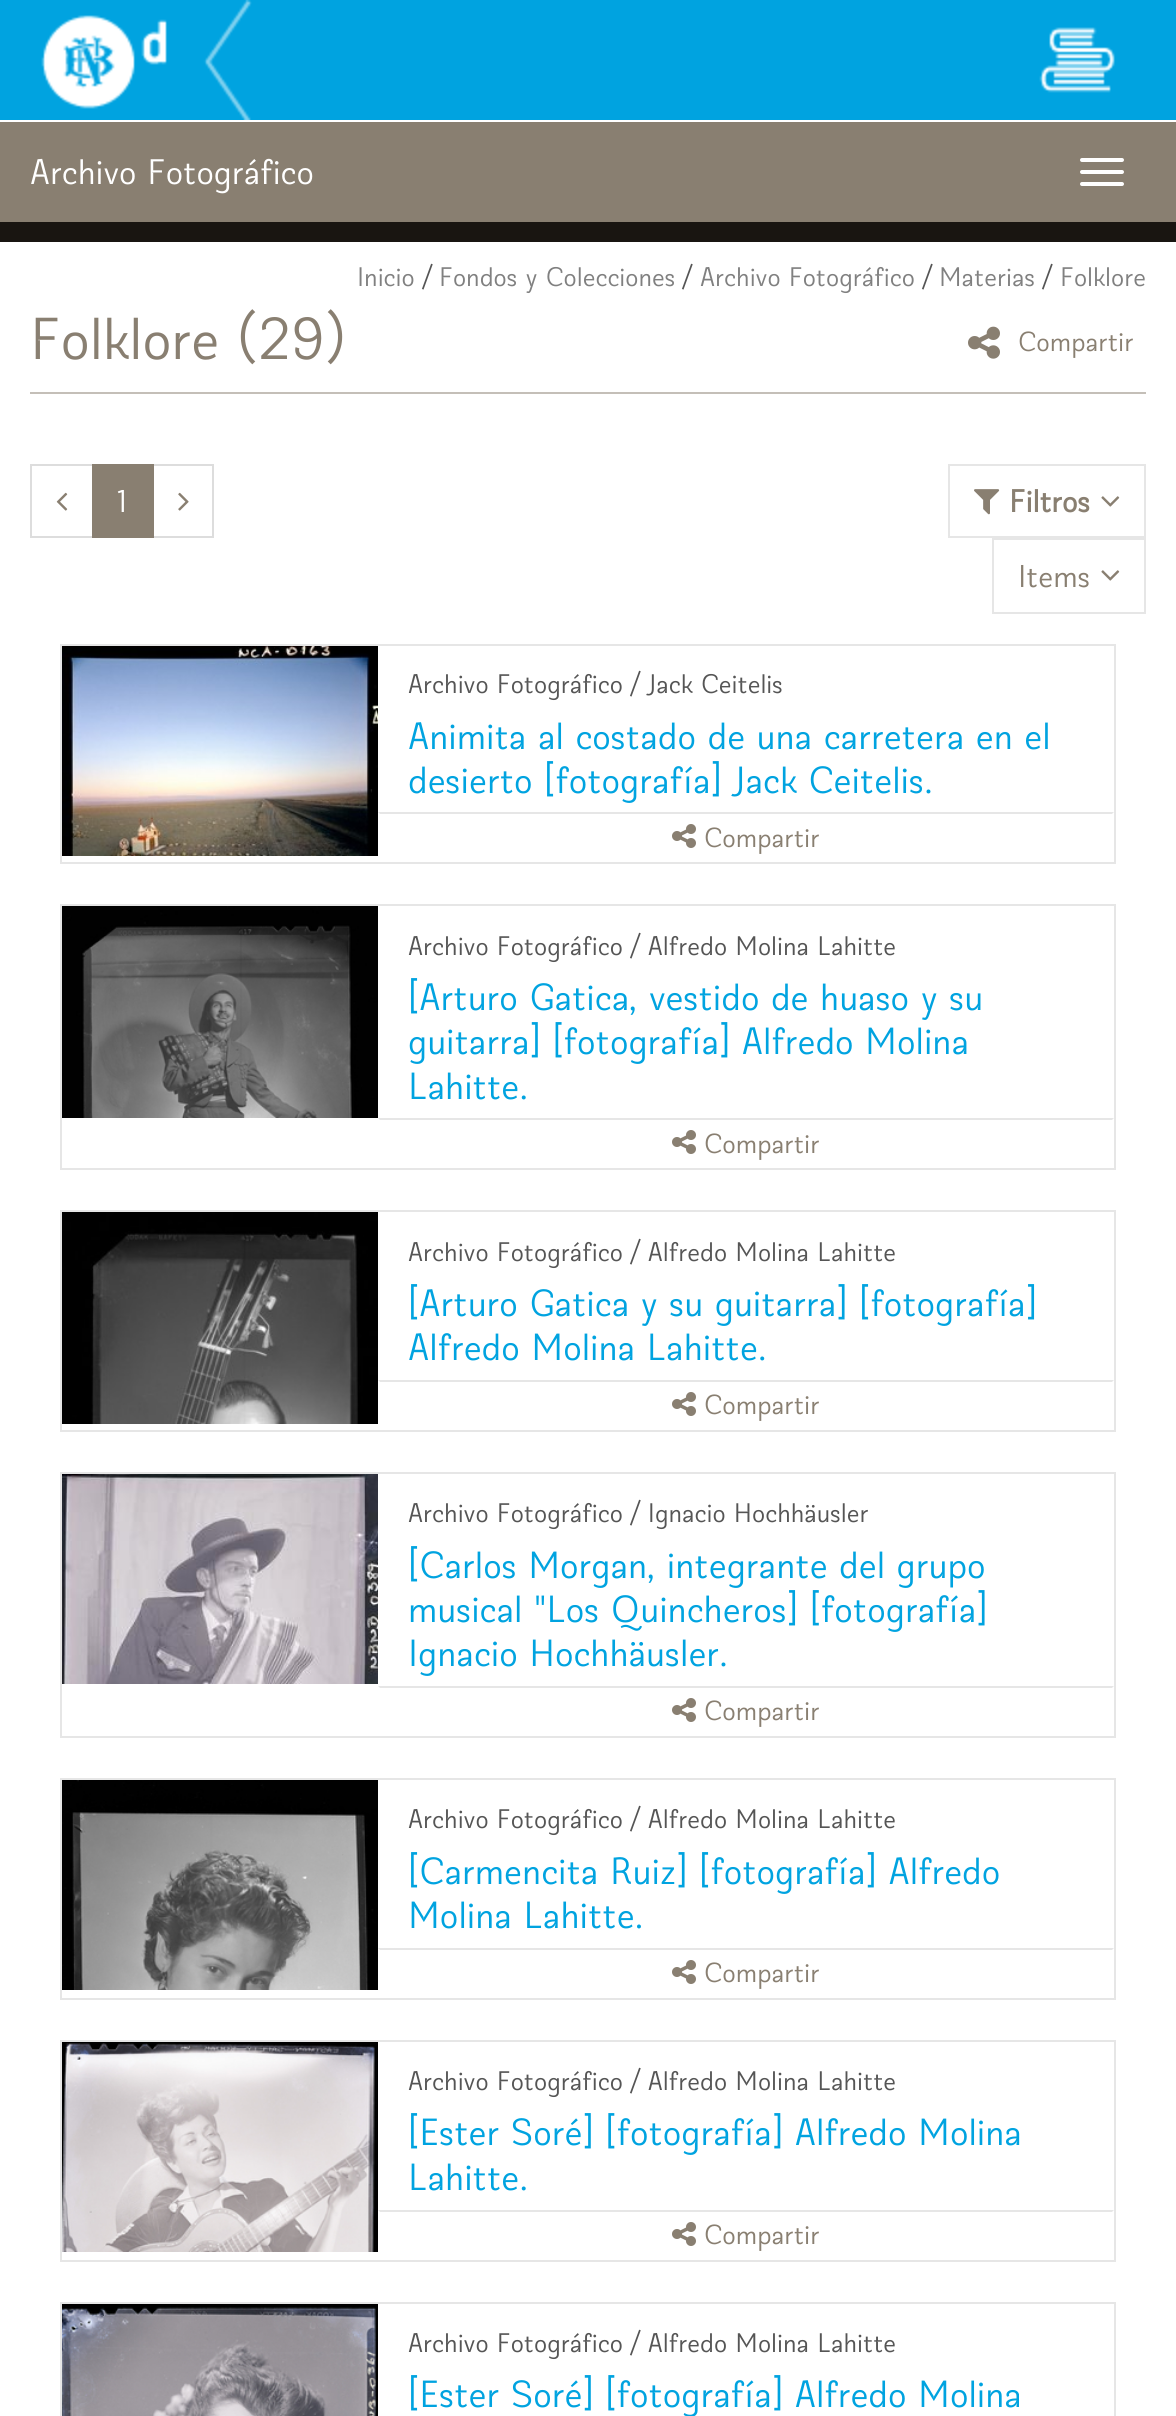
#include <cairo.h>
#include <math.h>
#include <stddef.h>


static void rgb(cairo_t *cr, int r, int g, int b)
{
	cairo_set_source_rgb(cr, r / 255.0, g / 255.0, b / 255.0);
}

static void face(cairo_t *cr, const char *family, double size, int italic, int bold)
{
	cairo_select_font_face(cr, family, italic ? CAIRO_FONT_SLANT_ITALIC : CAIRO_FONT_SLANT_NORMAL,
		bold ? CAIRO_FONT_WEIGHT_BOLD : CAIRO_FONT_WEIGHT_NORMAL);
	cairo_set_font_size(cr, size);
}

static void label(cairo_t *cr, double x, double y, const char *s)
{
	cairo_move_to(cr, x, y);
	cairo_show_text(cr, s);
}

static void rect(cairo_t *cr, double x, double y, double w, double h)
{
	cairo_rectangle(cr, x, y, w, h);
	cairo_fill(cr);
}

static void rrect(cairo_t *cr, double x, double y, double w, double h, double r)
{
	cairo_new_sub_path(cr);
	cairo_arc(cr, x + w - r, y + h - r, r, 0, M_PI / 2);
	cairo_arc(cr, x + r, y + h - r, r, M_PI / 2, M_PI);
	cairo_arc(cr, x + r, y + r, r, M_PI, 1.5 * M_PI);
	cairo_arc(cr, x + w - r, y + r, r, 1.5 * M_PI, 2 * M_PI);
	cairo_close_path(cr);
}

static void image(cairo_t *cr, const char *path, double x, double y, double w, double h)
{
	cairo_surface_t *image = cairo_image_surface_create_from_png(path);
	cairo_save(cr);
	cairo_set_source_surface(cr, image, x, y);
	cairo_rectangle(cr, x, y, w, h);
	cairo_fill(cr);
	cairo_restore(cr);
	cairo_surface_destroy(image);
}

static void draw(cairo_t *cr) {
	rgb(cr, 255, 255, 255);
	cairo_paint(cr);
	rgb(cr, 0, 163, 224);
	rect(cr, 0, 0, 1176, 120);
	image(cr, "image0.png", 41, 0, 211, 120);
	image(cr, "image1.png", 1039, 27, 76, 66);
	rgb(cr, 137, 127, 113);
	rect(cr, 0, 122, 1176, 100);
	rgb(cr, 25, 21, 17);
	rect(cr, 0, 222, 1176, 20);
	face(cr, "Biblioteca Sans", 36, 0, 0);
	rgb(cr, 255, 255, 255);
	label(cr, 30, 184, "Archivo Fotográfico");
	rrect(cr, 1080, 158, 44, 4, 2);
	cairo_fill(cr);
	rrect(cr, 1080, 170, 44, 4, 2);
	cairo_fill(cr);
	rrect(cr, 1080, 182, 44, 4, 2);
	cairo_fill(cr);
	face(cr, "Biblioteca Sans", 27.25, 0, 0);
	rgb(cr, 128, 128, 128);
	label(cr, 357, 286, "Inicio");
	rgb(cr, 85, 85, 85);
	label(cr, 423, 286, "/");
	rgb(cr, 128, 128, 128);
	label(cr, 439, 286, "Fondos y Colecciones");
	rgb(cr, 85, 85, 85);
	label(cr, 683, 286, "/");
	rgb(cr, 128, 128, 128);
	label(cr, 700, 286, "Archivo Fotográfico");
	rgb(cr, 85, 85, 85);
	label(cr, 923, 286, "/");
	rgb(cr, 128, 128, 128);
	label(cr, 939, 286, "Materias");
	rgb(cr, 85, 85, 85);
	label(cr, 1043, 286, "/");
	rgb(cr, 128, 128, 128);
	label(cr, 1060, 286, "Folklore");
	rgb(cr, 196, 191, 184);
	rect(cr, 30, 392, 1116, 2);
	face(cr, "Biblioteca Sans", 60, 0, 0);
	rgb(cr, 137, 127, 113);
	label(cr, 30, 359, "Folklore (29)");
	image(cr, "image2.png", 968, 326, 32, 33);
	face(cr, "Biblioteca Sans", 28, 0, 0);
	label(cr, 1018, 351, "Compartir");
	cairo_rectangle(cr, 31, 465, 62, 72);
	rgb(cr, 221, 221, 221);
	cairo_stroke(cr);
	image(cr, "image3.png", 56, 492, 12, 19);
	cairo_rectangle(cr, 153, 465, 60, 72);
	cairo_stroke(cr);
	rgb(cr, 137, 127, 113);
	rect(cr, 92, 464, 62, 74);
	face(cr, "Biblioteca Sans", 32, 0, 0);
	rgb(cr, 255, 255, 255);
	label(cr, 117, 512, "1");
	image(cr, "image4.png", 178, 492, 11, 19);
	cairo_rectangle(cr, 949, 465, 196, 72);
	rgb(cr, 230, 230, 230);
	cairo_stroke(cr);
	image(cr, "image5.png", 974, 489, 26, 26);
	face(cr, "Biblioteca Sans", 32, 0, 1);
	rgb(cr, 137, 127, 113);
	label(cr, 1009, 512, "Filtros");
	image(cr, "image6.png", 1101, 496, 19, 11);
	cairo_rectangle(cr, 993, 539, 152, 74);
	rgb(cr, 230, 230, 230);
	cairo_stroke(cr);
	face(cr, "Biblioteca Sans", 32, 0, 0);
	rgb(cr, 137, 127, 113);
	label(cr, 1018, 587, "Items");
	image(cr, "image6.png", 1101, 570, 19, 11);
	cairo_rectangle(cr, 61, 645, 1054, 218);
	rgb(cr, 230, 230, 230);
	cairo_stroke(cr);
	image(cr, "image7.png", 62, 646, 316, 210);
	face(cr, "Biblioteca Sans", 27.25, 0, 0);
	rgb(cr, 85, 85, 85);
	label(cr, 408, 693, "Archivo Fotográfico / Jack Ceitelis");
	face(cr, "Biblioteca Sans", 38.4, 0, 0);
	rgb(cr, 0, 163, 224);
	label(cr, 408, 749, "Animita al costado de una carretera en el");
	label(cr, 408, 793, "desierto [fotografía] Jack Ceitelis.");
	rgb(cr, 230, 230, 230);
	cairo_new_path(cr);
	cairo_move_to(cr, 378, 812);
	cairo_line_to(cr, 1114, 812);
	cairo_line_to(cr, 1112, 814);
	cairo_line_to(cr, 380, 814);
	cairo_close_path(cr);
	cairo_fill(cr);
	image(cr, "image8.png", 672, 824, 24, 24);
	face(cr, "Biblioteca Sans", 28, 0, 0);
	rgb(cr, 137, 127, 113);
	label(cr, 704, 847, "Compartir");
	cairo_rectangle(cr, 61, 905, 1054, 264);
	rgb(cr, 230, 230, 230);
	cairo_stroke(cr);
	image(cr, "image9.png", 62, 906, 316, 212);
	face(cr, "Biblioteca Sans", 27.25, 0, 0);
	rgb(cr, 85, 85, 85);
	label(cr, 408, 955, "Archivo Fotográfico / Alfredo Molina Lahitte");
	face(cr, "Biblioteca Sans", 38.4, 0, 0);
	rgb(cr, 0, 163, 224);
	label(cr, 408, 1010, "[Arturo Gatica, vestido de huaso y su");
	label(cr, 408, 1054, "guitarra] [fotografía] Alfredo Molina");
	label(cr, 408, 1099, "Lahitte.");
	rgb(cr, 230, 230, 230);
	cairo_new_path(cr);
	cairo_move_to(cr, 378, 1118);
	cairo_line_to(cr, 1114, 1118);
	cairo_line_to(cr, 1112, 1120);
	cairo_line_to(cr, 380, 1120);
	cairo_close_path(cr);
	cairo_fill(cr);
	image(cr, "image8.png", 672, 1130, 24, 24);
	face(cr, "Biblioteca Sans", 28, 0, 0);
	rgb(cr, 137, 127, 113);
	label(cr, 704, 1153, "Compartir");
	cairo_rectangle(cr, 61, 1211, 1054, 220);
	rgb(cr, 230, 230, 230);
	cairo_stroke(cr);
	image(cr, "image10.png", 62, 1212, 316, 212);
	face(cr, "Biblioteca Sans", 27.25, 0, 0);
	rgb(cr, 85, 85, 85);
	label(cr, 408, 1261, "Archivo Fotográfico / Alfredo Molina Lahitte");
	face(cr, "Biblioteca Sans", 38.4, 0, 0);
	rgb(cr, 0, 163, 224);
	label(cr, 408, 1316, "[Arturo Gatica y su guitarra] [fotografía]");
	label(cr, 408, 1360, "Alfredo Molina Lahitte.");
	rgb(cr, 230, 230, 230);
	cairo_new_path(cr);
	cairo_move_to(cr, 378, 1380);
	cairo_line_to(cr, 1114, 1380);
	cairo_line_to(cr, 1112, 1382);
	cairo_line_to(cr, 380, 1382);
	cairo_close_path(cr);
	cairo_fill(cr);
	image(cr, "image8.png", 672, 1392, 24, 24);
	face(cr, "Biblioteca Sans", 28, 0, 0);
	rgb(cr, 137, 127, 113);
	label(cr, 704, 1414, "Compartir");
	cairo_rectangle(cr, 61, 1473, 1054, 264);
	rgb(cr, 230, 230, 230);
	cairo_stroke(cr);
	image(cr, "image11.png", 62, 1474, 316, 210);
	face(cr, "Biblioteca Sans", 27.25, 0, 0);
	rgb(cr, 85, 85, 85);
	label(cr, 408, 1522, "Archivo Fotográfico / Ignacio Hochhäusler");
	face(cr, "Biblioteca Sans", 38.4, 0, 0);
	rgb(cr, 0, 163, 224);
	label(cr, 408, 1578, "[Carlos Morgan, integrante del grupo");
	label(cr, 408, 1622, "musical \"Los Quincheros] [fotografía]");
	label(cr, 408, 1666, "Ignacio Hochhäusler.");
	rgb(cr, 230, 230, 230);
	cairo_new_path(cr);
	cairo_move_to(cr, 378, 1686);
	cairo_line_to(cr, 1114, 1686);
	cairo_line_to(cr, 1112, 1688);
	cairo_line_to(cr, 380, 1688);
	cairo_close_path(cr);
	cairo_fill(cr);
	image(cr, "image8.png", 672, 1698, 24, 24);
	face(cr, "Biblioteca Sans", 28, 0, 0);
	rgb(cr, 137, 127, 113);
	label(cr, 704, 1720, "Compartir");
	cairo_rectangle(cr, 61, 1779, 1054, 220);
	rgb(cr, 230, 230, 230);
	cairo_stroke(cr);
	image(cr, "image12.png", 62, 1780, 316, 210);
	face(cr, "Biblioteca Sans", 27.25, 0, 0);
	rgb(cr, 85, 85, 85);
	label(cr, 408, 1828, "Archivo Fotográfico / Alfredo Molina Lahitte");
	face(cr, "Biblioteca Sans", 38.4, 0, 0);
	rgb(cr, 0, 163, 224);
	label(cr, 408, 1884, "[Carmencita Ruiz] [fotografía] Alfredo");
	label(cr, 408, 1928, "Molina Lahitte.");
	rgb(cr, 230, 230, 230);
	cairo_new_path(cr);
	cairo_move_to(cr, 378, 1948);
	cairo_line_to(cr, 1114, 1948);
	cairo_line_to(cr, 1112, 1950);
	cairo_line_to(cr, 380, 1950);
	cairo_close_path(cr);
	cairo_fill(cr);
	image(cr, "image8.png", 672, 1960, 24, 24);
	face(cr, "Biblioteca Sans", 28, 0, 0);
	rgb(cr, 137, 127, 113);
	label(cr, 704, 1982, "Compartir");
	cairo_rectangle(cr, 61, 2041, 1054, 220);
	rgb(cr, 230, 230, 230);
	cairo_stroke(cr);
	image(cr, "image13.png", 62, 2042, 316, 210);
	face(cr, "Biblioteca Sans", 27.25, 0, 0);
	rgb(cr, 85, 85, 85);
	label(cr, 408, 2090, "Archivo Fotográfico / Alfredo Molina Lahitte");
	face(cr, "Biblioteca Sans", 38.4, 0, 0);
	rgb(cr, 0, 163, 224);
	label(cr, 408, 2145, "[Ester Soré] [fotografía] Alfredo Molina");
	label(cr, 408, 2190, "Lahitte.");
	rgb(cr, 230, 230, 230);
	cairo_new_path(cr);
	cairo_move_to(cr, 378, 2210);
	cairo_line_to(cr, 1114, 2210);
	cairo_line_to(cr, 1112, 2212);
	cairo_line_to(cr, 380, 2212);
	cairo_close_path(cr);
	cairo_fill(cr);
	image(cr, "image8.png", 672, 2222, 24, 24);
	face(cr, "Biblioteca Sans", 28, 0, 0);
	rgb(cr, 137, 127, 113);
	label(cr, 704, 2244, "Compartir");
	cairo_rectangle(cr, 61, 2303, 1054, 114);
	rgb(cr, 230, 230, 230);
	cairo_stroke(cr);
	image(cr, "image14.png", 62, 2304, 316, 112);
	face(cr, "Biblioteca Sans", 27.25, 0, 0);
	rgb(cr, 85, 85, 85);
	label(cr, 408, 2352, "Archivo Fotográfico / Alfredo Molina Lahitte");
	face(cr, "Biblioteca Sans", 38.4, 0, 0);
	rgb(cr, 0, 163, 224);
	label(cr, 408, 2407, "[Ester Soré] [fotografía] Alfredo Molina");
}

int main(void) {
	cairo_surface_t *surface = cairo_image_surface_create(CAIRO_FORMAT_RGB24, 1176, 2416);
	cairo_t *cr = cairo_create(surface);
	cairo_font_options_t *options = cairo_font_options_create();
	cairo_font_options_set_hint_metrics(options, CAIRO_HINT_METRICS_OFF);
	cairo_font_options_set_hint_style(options, CAIRO_HINT_STYLE_NONE);
	cairo_set_font_options(cr, options);
	cairo_set_miter_limit(cr, 4);
	draw(cr);
	cairo_surface_write_to_png(surface, "render.png");
	cairo_font_options_destroy(options);
	cairo_destroy(cr);
	cairo_surface_destroy(surface);
	return 0;
}
